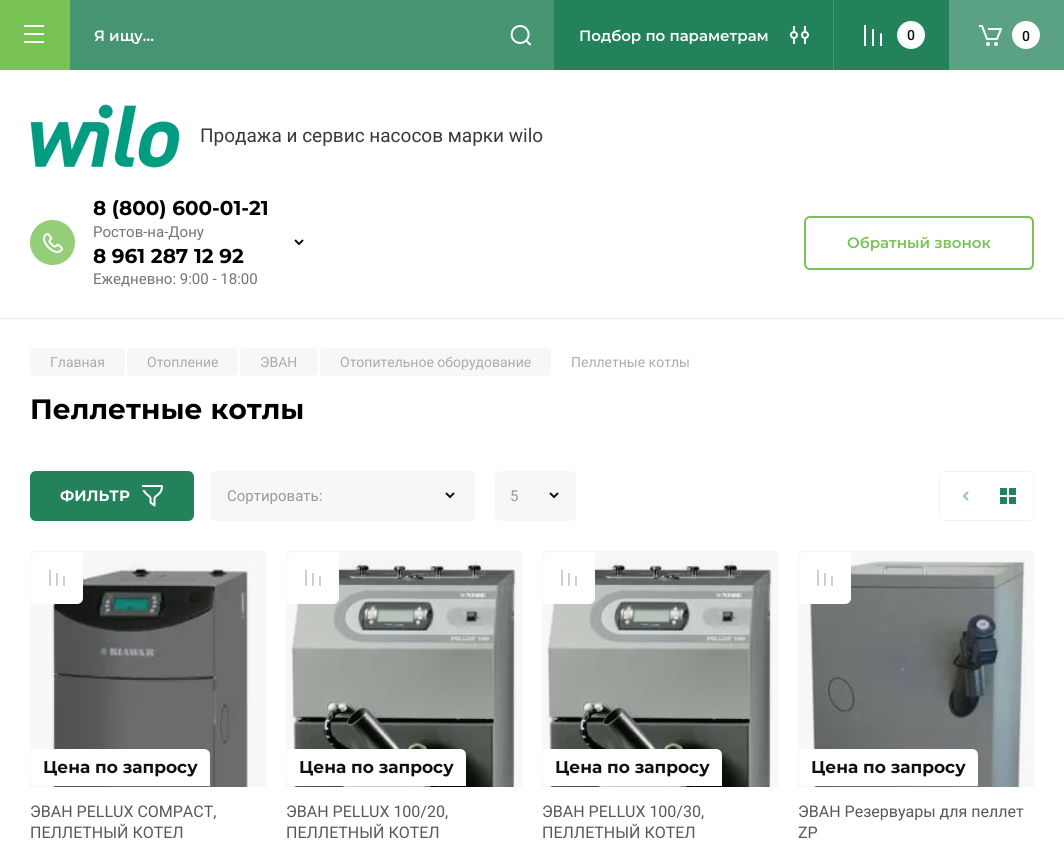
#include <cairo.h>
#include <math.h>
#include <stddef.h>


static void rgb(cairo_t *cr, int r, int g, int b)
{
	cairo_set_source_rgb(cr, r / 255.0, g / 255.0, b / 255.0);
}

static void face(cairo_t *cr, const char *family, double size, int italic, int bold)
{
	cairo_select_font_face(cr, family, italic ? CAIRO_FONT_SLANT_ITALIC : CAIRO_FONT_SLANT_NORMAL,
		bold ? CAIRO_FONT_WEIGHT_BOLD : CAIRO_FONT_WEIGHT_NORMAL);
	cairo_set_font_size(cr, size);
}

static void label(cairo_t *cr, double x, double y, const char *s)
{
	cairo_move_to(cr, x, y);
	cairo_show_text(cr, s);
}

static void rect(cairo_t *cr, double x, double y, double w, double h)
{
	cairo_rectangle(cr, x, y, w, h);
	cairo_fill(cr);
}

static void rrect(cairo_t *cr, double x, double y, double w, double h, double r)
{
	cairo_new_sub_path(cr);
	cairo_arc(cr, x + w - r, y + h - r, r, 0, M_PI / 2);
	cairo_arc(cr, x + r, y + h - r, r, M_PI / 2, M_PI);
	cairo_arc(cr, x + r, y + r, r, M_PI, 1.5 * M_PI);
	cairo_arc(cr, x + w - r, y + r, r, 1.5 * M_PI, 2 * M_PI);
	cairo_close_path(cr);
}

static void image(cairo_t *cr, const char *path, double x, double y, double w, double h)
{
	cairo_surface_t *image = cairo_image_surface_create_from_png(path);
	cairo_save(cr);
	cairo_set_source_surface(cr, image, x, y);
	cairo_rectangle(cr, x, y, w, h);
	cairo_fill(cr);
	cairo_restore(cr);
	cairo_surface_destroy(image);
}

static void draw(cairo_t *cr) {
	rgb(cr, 36, 130, 90);
	cairo_paint(cr);
	rgb(cr, 255, 255, 255);
	rect(cr, 0, 70, 1064, 790);
	rgb(cr, 121, 194, 86);
	rect(cr, 0, 0, 70, 70);
	image(cr, "image0.png", 24, 25, 20, 18);
	rgb(cr, 69, 149, 115);
	rect(cr, 70, 0, 484, 70);
	face(cr, "Montserrat SemiBold", 15, 0, 0);
	rgb(cr, 255, 255, 255);
	label(cr, 94, 41, "Я ищу…");
	image(cr, "image1.png", 510, 25, 22, 21);
	rgb(cr, 69, 149, 115);
	rect(cr, 833, 0, 1, 70);
	rgb(cr, 255, 255, 255);
	label(cr, 579, 41, "Подбор по параметрам");
	image(cr, "image2.png", 790, 26, 19, 18);
	image(cr, "image3.png", 864, 25, 18, 21);
	cairo_arc(cr, 911, 35, 14, 0, 2 * M_PI);
	cairo_fill(cr);
	face(cr, "Roboto Medium", 14, 0, 0);
	rgb(cr, 16, 16, 16);
	label(cr, 907, 40, "0");
	rgb(cr, 91, 161, 131);
	rect(cr, 949, 0, 115, 70);
	image(cr, "image4.png", 979, 25, 23, 21);
	rgb(cr, 255, 255, 255);
	cairo_arc(cr, 1026, 35, 14, 0, 2 * M_PI);
	cairo_fill(cr);
	rgb(cr, 16, 16, 16);
	label(cr, 1022, 41, "0");
	rgb(cr, 235, 235, 235);
	rect(cr, 0, 318, 1064, 1);
	image(cr, "image5.png", 30, 104, 150, 64);
	face(cr, "Roboto", 19, 0, 0);
	rgb(cr, 57, 57, 57);
	label(cr, 200, 142, "Продажа и сервис насосов марки wilo");
	image(cr, "image6.png", 30, 220, 45, 45);
	face(cr, "Montserrat", 20, 0, 1);
	rgb(cr, 0, 0, 0);
	label(cr, 93, 215, "8 (800) 600-01-21");
	face(cr, "Roboto", 15, 0, 0);
	rgb(cr, 116, 116, 116);
	label(cr, 93, 237, "Ростов-на-Дону");
	face(cr, "Montserrat", 20, 0, 1);
	rgb(cr, 0, 0, 0);
	label(cr, 93, 263, "8 961 287 12 92");
	face(cr, "Roboto", 15, 0, 0);
	rgb(cr, 116, 116, 116);
	label(cr, 93, 284, "Ежедневно: 9:00 - 18:00");
	image(cr, "image7.png", 294, 239, 10, 7);
	rrect(cr, 805, 217, 228, 52, 5);
	rgb(cr, 121, 194, 86);
	cairo_stroke(cr);
	face(cr, "Montserrat SemiBold", 15, 0, 0);
	label(cr, 847, 248, "Обратный звонок");
	rgb(cr, 247, 247, 247);
	rrect(cr, 30, 348, 95, 28, 4);
	cairo_fill(cr);
	face(cr, "Roboto", 14, 0, 0);
	rgb(cr, 171, 171, 171);
	label(cr, 50, 367, "Главная");
	rgb(cr, 247, 247, 247);
	rrect(cr, 127, 348, 111, 28, 4);
	cairo_fill(cr);
	rgb(cr, 171, 171, 171);
	label(cr, 147, 367, "Отопление");
	rgb(cr, 247, 247, 247);
	rrect(cr, 240, 348, 78, 28, 4);
	cairo_fill(cr);
	rgb(cr, 171, 171, 171);
	label(cr, 260, 367, "ЭВАН");
	rgb(cr, 247, 247, 247);
	rrect(cr, 320, 348, 231, 28, 4);
	cairo_fill(cr);
	rgb(cr, 171, 171, 171);
	label(cr, 340, 367, "Отопительное оборудование");
	label(cr, 571, 367, "Пеллетные котлы");
	face(cr, "Montserrat", 28, 0, 1);
	rgb(cr, 0, 0, 0);
	label(cr, 30, 419, "Пеллетные котлы");
	rgb(cr, 36, 130, 90);
	rrect(cr, 31, 472, 162, 48, 5);
	cairo_fill_preserve(cr);
	cairo_stroke(cr);
	face(cr, "Montserrat", 15, 0, 1);
	rgb(cr, 255, 255, 255);
	label(cr, 60, 501, "ФИЛЬТР");
	image(cr, "image8.png", 142, 485, 21, 22);
	rgb(cr, 247, 247, 247);
	rrect(cr, 210, 471, 265, 50, 6);
	cairo_fill(cr);
	face(cr, "Roboto", 15, 0, 0);
	rgb(cr, 152, 152, 152);
	label(cr, 227, 501, "Сортировать:");
	cairo_new_path(cr);
	cairo_move_to(cr, 454, 493);
	cairo_line_to(cr, 450, 497);
	cairo_line_to(cr, 446, 493);
	rgb(cr, 16, 16, 16);
	cairo_stroke(cr);
	rgb(cr, 247, 247, 247);
	rrect(cr, 495, 471, 81, 50, 6);
	cairo_fill(cr);
	image(cr, "image9.png", 549, 492, 10, 7);
	rgb(cr, 152, 152, 152);
	label(cr, 510, 501, "5");
	rrect(cr, 939.5, 471.5, 94, 49, 5.5);
	rgb(cr, 237, 245, 242);
	cairo_set_line_width(cr, 1);
	cairo_stroke(cr);
	rgb(cr, 255, 255, 255);
	cairo_new_path(cr);
	cairo_move_to(cr, 945, 472);
	cairo_line_to(cr, 990, 472);
	cairo_line_to(cr, 990, 520);
	cairo_line_to(cr, 945, 520);
	cairo_curve_to(cr, 942, 520, 940, 518, 940, 515);
	cairo_line_to(cr, 940, 477);
	cairo_curve_to(cr, 940, 474, 942, 472, 945, 472);
	cairo_close_path(cr);
	cairo_fill(cr);
	image(cr, "image10.png", 962, 491, 7, 10);
	image(cr, "image11.png", 1000, 488, 16, 16);
	cairo_new_path(cr);
	cairo_move_to(cr, 1032, 472);
	cairo_line_to(cr, 1028, 472);
	cairo_curve_to(cr, 1031, 472, 1033, 474, 1033, 477);
	cairo_line_to(cr, 1033, 515);
	cairo_curve_to(cr, 1033, 518, 1031, 520, 1028, 520);
	cairo_line_to(cr, 1032, 520);
	cairo_curve_to(cr, 1028.5, 520, 1026, 517.5, 1026, 514);
	cairo_line_to(cr, 1026, 478);
	cairo_curve_to(cr, 1026, 474.5, 1028.5, 472, 1032, 472);
	cairo_close_path(cr);
	cairo_fill(cr);
	image(cr, "image12.png", 51, 562, 199, 225);
	cairo_set_source_rgba(cr, 0, 0, 0, 0.03);
	rect(cr, 30, 551, 236, 236);
	rgb(cr, 255, 255, 255);
	cairo_new_path(cr);
	cairo_move_to(cr, 31, 749);
	cairo_line_to(cr, 204, 749);
	cairo_curve_to(cr, 207.5, 749, 210, 751.5, 210, 755);
	cairo_line_to(cr, 210, 786);
	cairo_line_to(cr, 37, 786);
	cairo_curve_to(cr, 33.5, 786, 31, 783.5, 31, 780);
	cairo_close_path(cr);
	cairo_fill(cr);
	face(cr, "Montserrat", 17, 0, 1);
	rgb(cr, 16, 16, 16);
	label(cr, 43, 773, "Цена по запросу");
	rgb(cr, 255, 255, 255);
	cairo_new_path(cr);
	cairo_move_to(cr, 37, 552);
	cairo_line_to(cr, 83, 552);
	cairo_line_to(cr, 83, 598);
	cairo_curve_to(cr, 83, 601.5, 80.5, 604, 77, 604);
	cairo_line_to(cr, 31, 604);
	cairo_line_to(cr, 31, 558);
	cairo_curve_to(cr, 31, 554.5, 33.5, 552, 37, 552);
	cairo_close_path(cr);
	cairo_fill(cr);
	image(cr, "image13.png", 49, 570, 16, 16);
	face(cr, "Roboto", 16, 0, 0);
	rgb(cr, 88, 88, 88);
	label(cr, 30, 817, "ЭВАН PELLUX COMPACT,");
	label(cr, 30, 838, "ПЕЛЛЕТНЫЙ КОТЕЛ");
	image(cr, "image14.png", 290, 560, 227, 227);
	cairo_set_source_rgba(cr, 0, 0, 0, 0.03);
	rect(cr, 286, 551, 236, 236);
	rgb(cr, 255, 255, 255);
	cairo_new_path(cr);
	cairo_move_to(cr, 287, 749);
	cairo_line_to(cr, 460, 749);
	cairo_curve_to(cr, 463.5, 749, 466, 751.5, 466, 755);
	cairo_line_to(cr, 466, 786);
	cairo_line_to(cr, 293, 786);
	cairo_curve_to(cr, 289.5, 786, 287, 783.5, 287, 780);
	cairo_close_path(cr);
	cairo_fill(cr);
	face(cr, "Montserrat", 17, 0, 1);
	rgb(cr, 16, 16, 16);
	label(cr, 299, 773, "Цена по запросу");
	rgb(cr, 255, 255, 255);
	cairo_new_path(cr);
	cairo_move_to(cr, 293, 552);
	cairo_line_to(cr, 339, 552);
	cairo_line_to(cr, 339, 598);
	cairo_curve_to(cr, 339, 601.5, 336.5, 604, 333, 604);
	cairo_line_to(cr, 287, 604);
	cairo_line_to(cr, 287, 558);
	cairo_curve_to(cr, 287, 554.5, 289.5, 552, 293, 552);
	cairo_close_path(cr);
	cairo_fill(cr);
	image(cr, "image13.png", 305, 570, 16, 16);
	face(cr, "Roboto", 16, 0, 0);
	rgb(cr, 88, 88, 88);
	label(cr, 286, 817, "ЭВАН PELLUX 100/20,");
	label(cr, 286, 838, "ПЕЛЛЕТНЫЙ КОТЕЛ");
	image(cr, "image15.png", 546, 560, 227, 227);
	cairo_set_source_rgba(cr, 0, 0, 0, 0.03);
	rect(cr, 542, 551, 236, 236);
	rgb(cr, 255, 255, 255);
	cairo_new_path(cr);
	cairo_move_to(cr, 543, 749);
	cairo_line_to(cr, 716, 749);
	cairo_curve_to(cr, 719.5, 749, 722, 751.5, 722, 755);
	cairo_line_to(cr, 722, 786);
	cairo_line_to(cr, 549, 786);
	cairo_curve_to(cr, 545.5, 786, 543, 783.5, 543, 780);
	cairo_close_path(cr);
	cairo_fill(cr);
	face(cr, "Montserrat", 17, 0, 1);
	rgb(cr, 16, 16, 16);
	label(cr, 555, 773, "Цена по запросу");
	rgb(cr, 255, 255, 255);
	cairo_new_path(cr);
	cairo_move_to(cr, 549, 552);
	cairo_line_to(cr, 595, 552);
	cairo_line_to(cr, 595, 598);
	cairo_curve_to(cr, 595, 601.5, 592.5, 604, 589, 604);
	cairo_line_to(cr, 543, 604);
	cairo_line_to(cr, 543, 558);
	cairo_curve_to(cr, 543, 554.5, 545.5, 552, 549, 552);
	cairo_close_path(cr);
	cairo_fill(cr);
	image(cr, "image13.png", 561, 570, 16, 16);
	face(cr, "Roboto", 16, 0, 0);
	rgb(cr, 88, 88, 88);
	label(cr, 542, 817, "ЭВАН PELLUX 100/30,");
	label(cr, 542, 838, "ПЕЛЛЕТНЫЙ КОТЕЛ");
	image(cr, "image16.png", 798, 560, 228, 227);
	cairo_set_source_rgba(cr, 0, 0, 0, 0.03);
	rect(cr, 798, 551, 236, 236);
	rgb(cr, 255, 255, 255);
	cairo_new_path(cr);
	cairo_move_to(cr, 799, 749);
	cairo_line_to(cr, 972, 749);
	cairo_curve_to(cr, 975.5, 749, 978, 751.5, 978, 755);
	cairo_line_to(cr, 978, 786);
	cairo_line_to(cr, 805, 786);
	cairo_curve_to(cr, 801.5, 786, 799, 783.5, 799, 780);
	cairo_close_path(cr);
	cairo_fill(cr);
	face(cr, "Montserrat", 17, 0, 1);
	rgb(cr, 16, 16, 16);
	label(cr, 811, 773, "Цена по запросу");
	rgb(cr, 255, 255, 255);
	cairo_new_path(cr);
	cairo_move_to(cr, 805, 552);
	cairo_line_to(cr, 851, 552);
	cairo_line_to(cr, 851, 598);
	cairo_curve_to(cr, 851, 601.5, 848.5, 604, 845, 604);
	cairo_line_to(cr, 799, 604);
	cairo_line_to(cr, 799, 558);
	cairo_curve_to(cr, 799, 554.5, 801.5, 552, 805, 552);
	cairo_close_path(cr);
	cairo_fill(cr);
	image(cr, "image13.png", 817, 570, 16, 16);
	face(cr, "Roboto", 16, 0, 0);
	rgb(cr, 88, 88, 88);
	label(cr, 798, 817, "ЭВАН Резервуары для пеллет");
	label(cr, 798, 838, "ZP");
}

int main(void) {
	cairo_surface_t *surface = cairo_image_surface_create(CAIRO_FORMAT_RGB24, 1064, 860);
	cairo_t *cr = cairo_create(surface);
	cairo_font_options_t *options = cairo_font_options_create();
	cairo_font_options_set_hint_metrics(options, CAIRO_HINT_METRICS_OFF);
	cairo_font_options_set_hint_style(options, CAIRO_HINT_STYLE_NONE);
	cairo_set_font_options(cr, options);
	cairo_set_miter_limit(cr, 4);
	draw(cr);
	cairo_surface_write_to_png(surface, "render.png");
	cairo_font_options_destroy(options);
	cairo_destroy(cr);
	cairo_surface_destroy(surface);
	return 0;
}
